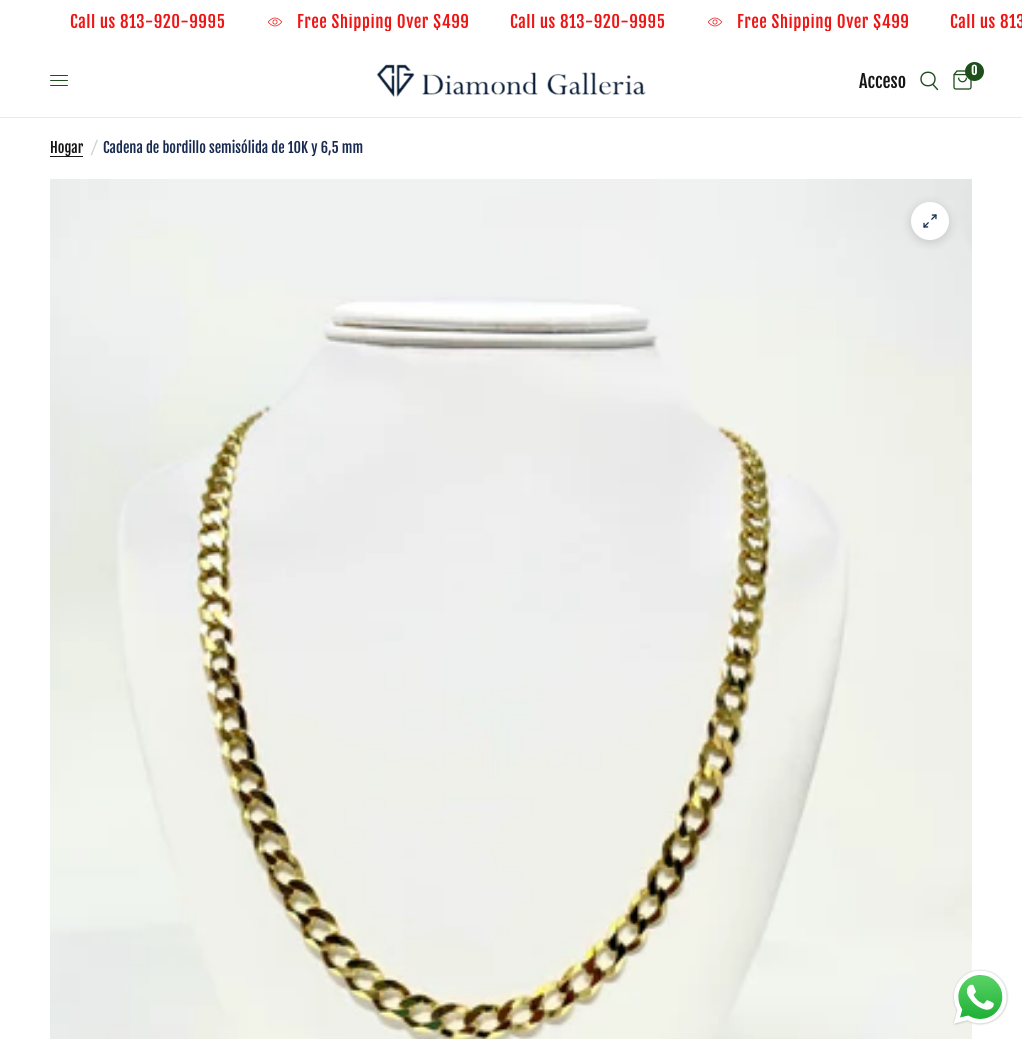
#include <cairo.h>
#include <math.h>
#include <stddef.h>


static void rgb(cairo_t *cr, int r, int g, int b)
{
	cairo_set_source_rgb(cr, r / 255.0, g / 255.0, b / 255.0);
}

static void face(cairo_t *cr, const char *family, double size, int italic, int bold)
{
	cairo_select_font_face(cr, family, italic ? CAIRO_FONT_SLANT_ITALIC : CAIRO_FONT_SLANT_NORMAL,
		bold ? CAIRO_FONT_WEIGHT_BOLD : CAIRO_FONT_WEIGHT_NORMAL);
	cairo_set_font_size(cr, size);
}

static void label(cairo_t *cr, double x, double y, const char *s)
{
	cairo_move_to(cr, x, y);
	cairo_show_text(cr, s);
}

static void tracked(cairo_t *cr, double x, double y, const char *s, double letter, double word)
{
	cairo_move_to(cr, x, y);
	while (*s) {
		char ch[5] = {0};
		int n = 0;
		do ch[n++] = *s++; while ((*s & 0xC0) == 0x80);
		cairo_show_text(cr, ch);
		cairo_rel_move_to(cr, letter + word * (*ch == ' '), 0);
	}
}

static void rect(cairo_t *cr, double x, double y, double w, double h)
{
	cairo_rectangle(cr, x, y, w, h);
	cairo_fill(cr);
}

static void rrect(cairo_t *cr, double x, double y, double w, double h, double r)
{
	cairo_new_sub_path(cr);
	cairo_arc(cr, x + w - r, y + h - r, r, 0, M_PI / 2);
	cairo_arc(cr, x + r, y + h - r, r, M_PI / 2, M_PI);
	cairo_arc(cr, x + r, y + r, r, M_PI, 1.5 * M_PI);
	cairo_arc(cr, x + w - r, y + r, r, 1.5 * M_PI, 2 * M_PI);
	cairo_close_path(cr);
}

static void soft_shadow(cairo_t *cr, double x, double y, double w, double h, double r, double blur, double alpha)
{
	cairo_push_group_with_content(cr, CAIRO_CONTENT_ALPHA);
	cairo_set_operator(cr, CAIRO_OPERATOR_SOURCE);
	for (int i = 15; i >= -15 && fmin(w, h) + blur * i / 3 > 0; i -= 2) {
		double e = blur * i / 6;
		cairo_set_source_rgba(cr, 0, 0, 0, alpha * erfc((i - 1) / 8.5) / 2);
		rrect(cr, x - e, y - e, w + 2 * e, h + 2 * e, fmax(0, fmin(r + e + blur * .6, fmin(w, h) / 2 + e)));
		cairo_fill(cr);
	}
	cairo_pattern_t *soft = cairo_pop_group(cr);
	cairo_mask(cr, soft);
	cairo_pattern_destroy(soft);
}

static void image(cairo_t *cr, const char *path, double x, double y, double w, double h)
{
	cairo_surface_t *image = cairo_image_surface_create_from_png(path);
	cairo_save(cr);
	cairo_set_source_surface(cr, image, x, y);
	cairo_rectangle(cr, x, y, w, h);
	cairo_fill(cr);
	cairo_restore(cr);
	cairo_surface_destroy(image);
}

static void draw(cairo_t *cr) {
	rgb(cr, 255, 255, 255);
	cairo_paint(cr);
	cairo_save(cr);
	cairo_rectangle(cr, 0, 14, 1022, 17);
	cairo_clip(cr);
	face(cr, "Fjalla One", 16.9, 0, 0);
	rgb(cr, 238, 21, 21);
	tracked(cr, 70, 28, "Call us 813-920-9995", 0.5, 0);
	cairo_restore(cr);
	image(cr, "image0.png", 268, 17, 14, 10);
	cairo_save(cr);
	cairo_rectangle(cr, 0, 14, 1022, 17);
	cairo_clip(cr);
	face(cr, "Fjalla One", 16.9, 0, 0);
	rgb(cr, 238, 21, 21);
	tracked(cr, 297, 28, "Free Shipping Over $499", 0.5, 0);
	tracked(cr, 510, 28, "Call us 813-920-9995", 0.5, 0);
	cairo_restore(cr);
	image(cr, "image0.png", 708, 17, 14, 10);
	cairo_save(cr);
	cairo_rectangle(cr, 0, 14, 1022, 17);
	cairo_clip(cr);
	face(cr, "Fjalla One", 16.9, 0, 0);
	rgb(cr, 238, 21, 21);
	tracked(cr, 737, 28, "Free Shipping Over $499", 0.5, 0);
	tracked(cr, 950, 28, "Call us 813", 0.5, 0);
	cairo_restore(cr);
	rgb(cr, 234, 234, 234);
	rect(cr, 0, 117, 1022, 1);
	rgb(cr, 30, 78, 28);
	rrect(cr, 50, 75, 18, 1, 0.5);
	cairo_fill(cr);
	rrect(cr, 50, 80, 18, 1, 0.5);
	cairo_fill(cr);
	rrect(cr, 50, 85, 18, 1, 0.5);
	cairo_fill(cr);
	image(cr, "image1.png", 376, 64, 270, 33);
	face(cr, "Fjalla One", 18, 0, 0);
	rgb(cr, 21, 21, 21);
	label(cr, 859, 88, "Acceso");
	cairo_new_path(cr);
	cairo_move_to(cr, 933, 84.5);
	cairo_line_to(cr, 937.5, 89.5);
	cairo_move_to(cr, 935, 79);
	cairo_curve_to(cr, 935, 88, 921, 88, 921, 79);
	cairo_curve_to(cr, 921, 70, 935, 70, 935, 79);
	cairo_close_path(cr);
	rgb(cr, 30, 78, 28);
	cairo_set_line_width(cr, 1.4);
	cairo_set_line_cap(cr, CAIRO_LINE_CAP_ROUND);
	cairo_set_line_join(cr, CAIRO_LINE_JOIN_ROUND);
	cairo_stroke(cr);
	image(cr, "image2.png", 953, 70, 19, 20);
	cairo_arc(cr, 974.5, 71.5, 9.5, 0, 2 * M_PI);
	cairo_fill(cr);
	face(cr, "Fjalla One", 12, 0, 1);
	rgb(cr, 255, 255, 255);
	label(cr, 971, 75, "0");
	rgb(cr, 21, 21, 21);
	rect(cr, 50, 156, 33, 1);
	face(cr, "Fjalla One", 14.4, 0, 0);
	label(cr, 50, 153, "Hogar");
	face(cr, "Fjalla One", 14.4, 1, 0);
	rgb(cr, 209, 212, 220);
	label(cr, 91, 153, "/");
	face(cr, "Fjalla One", 14.4, 0, 0);
	rgb(cr, 25, 42, 80);
	label(cr, 103, 153, "Cadena de bordillo semisólida de 10K y 6,5 mm");
	image(cr, "image3.png", 50, 179, 922, 860);
	rgb(cr, 0, 0, 0);
	soft_shadow(cr, 911, 204, 38, 38, 19, 5, 0.15);
	rgb(cr, 255, 255, 255);
	cairo_arc(cr, 930, 221, 19, 0, 2 * M_PI);
	cairo_fill(cr);
	image(cr, "image4.png", 923, 214, 14, 14);
	image(cr, "image5.png", 952, 969, 57, 57);
}

int main(void) {
	cairo_surface_t *surface = cairo_image_surface_create(CAIRO_FORMAT_RGB24, 1022, 1039);
	cairo_t *cr = cairo_create(surface);
	cairo_font_options_t *options = cairo_font_options_create();
	cairo_font_options_set_hint_metrics(options, CAIRO_HINT_METRICS_OFF);
	cairo_font_options_set_hint_style(options, CAIRO_HINT_STYLE_NONE);
	cairo_set_font_options(cr, options);
	cairo_set_miter_limit(cr, 4);
	draw(cr);
	cairo_surface_write_to_png(surface, "render.png");
	cairo_font_options_destroy(options);
	cairo_destroy(cr);
	cairo_surface_destroy(surface);
	return 0;
}
